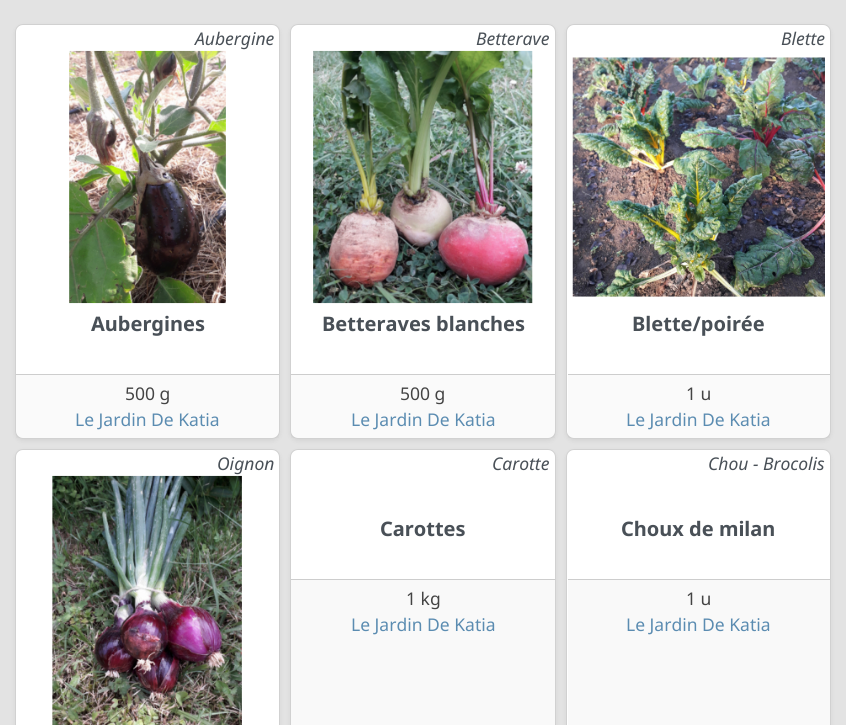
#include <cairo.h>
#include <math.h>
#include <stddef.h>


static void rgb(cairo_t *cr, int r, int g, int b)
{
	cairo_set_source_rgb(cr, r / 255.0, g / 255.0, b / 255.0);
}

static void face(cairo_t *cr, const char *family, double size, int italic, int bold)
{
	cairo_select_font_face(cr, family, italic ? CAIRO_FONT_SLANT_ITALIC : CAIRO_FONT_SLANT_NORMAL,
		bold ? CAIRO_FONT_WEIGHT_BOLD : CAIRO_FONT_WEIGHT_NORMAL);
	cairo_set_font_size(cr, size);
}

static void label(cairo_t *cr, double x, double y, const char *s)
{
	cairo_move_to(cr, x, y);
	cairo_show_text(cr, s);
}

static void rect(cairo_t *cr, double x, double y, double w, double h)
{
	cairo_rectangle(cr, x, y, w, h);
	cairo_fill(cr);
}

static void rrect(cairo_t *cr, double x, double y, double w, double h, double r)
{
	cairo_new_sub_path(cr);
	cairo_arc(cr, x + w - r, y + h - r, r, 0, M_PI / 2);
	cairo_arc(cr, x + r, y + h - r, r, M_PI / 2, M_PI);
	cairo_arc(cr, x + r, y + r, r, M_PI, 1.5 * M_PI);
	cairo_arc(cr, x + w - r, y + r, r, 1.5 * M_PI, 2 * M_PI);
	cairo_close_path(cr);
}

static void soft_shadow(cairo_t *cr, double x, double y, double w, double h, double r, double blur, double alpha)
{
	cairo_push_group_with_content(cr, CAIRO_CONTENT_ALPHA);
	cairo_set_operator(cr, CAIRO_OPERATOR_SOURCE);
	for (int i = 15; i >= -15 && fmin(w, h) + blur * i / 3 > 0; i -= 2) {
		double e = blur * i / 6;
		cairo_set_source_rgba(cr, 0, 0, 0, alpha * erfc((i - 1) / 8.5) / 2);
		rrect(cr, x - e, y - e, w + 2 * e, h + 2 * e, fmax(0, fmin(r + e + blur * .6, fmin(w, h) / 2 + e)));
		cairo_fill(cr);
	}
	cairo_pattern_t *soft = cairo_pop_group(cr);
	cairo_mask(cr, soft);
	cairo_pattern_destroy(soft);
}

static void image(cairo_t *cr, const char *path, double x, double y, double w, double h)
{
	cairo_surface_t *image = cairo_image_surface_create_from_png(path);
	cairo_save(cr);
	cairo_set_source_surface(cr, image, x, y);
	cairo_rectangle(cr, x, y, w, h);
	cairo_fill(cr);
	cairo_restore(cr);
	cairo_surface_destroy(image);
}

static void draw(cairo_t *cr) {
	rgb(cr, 227, 227, 227);
	cairo_paint(cr);
	rgb(cr, 0, 0, 0);
	soft_shadow(cr, 15, 26, 265, 415, 8, 2.5, 0.07);
	rgb(cr, 255, 255, 255);
	rrect(cr, 15, 24, 265, 415, 8);
	cairo_fill(cr);
	rrect(cr, 15.5, 24.5, 264, 414, 7.5);
	cairo_set_source_rgba(cr, 0, 0, 0, 0.18);
	cairo_set_line_width(cr, 1);
	cairo_stroke(cr);
	face(cr, "Noto Sans", 17.5, 1, 0);
	rgb(cr, 73, 80, 87);
	label(cr, 195, 45, "Aubergine");
	image(cr, "image0.png", 69, 50, 157, 254);
	face(cr, "Noto Sans", 20, 0, 1);
	label(cr, 91, 331, "Aubergines");
	cairo_set_source_rgba(cr, 0.267, 0.267, 0.267, 0.03);
	rect(cr, 16, 375, 263, 63);
	rgb(cr, 205, 205, 205);
	rect(cr, 16, 374, 263, 1);
	face(cr, "Noto Sans", 17.5, 0, 0);
	rgb(cr, 68, 68, 68);
	label(cr, 125, 400, "500 g");
	rgb(cr, 91, 140, 177);
	label(cr, 75, 426, "Le Jardin De Katia");
	rgb(cr, 0, 0, 0);
	soft_shadow(cr, 290, 26, 266, 415, 8, 2.5, 0.07);
	rgb(cr, 255, 255, 255);
	rrect(cr, 290, 24, 266, 415, 8);
	cairo_fill(cr);
	rrect(cr, 290.5, 24.5, 265, 414, 7.5);
	cairo_set_source_rgba(cr, 0, 0, 0, 0.18);
	cairo_stroke(cr);
	face(cr, "Noto Sans", 17.5, 1, 0);
	rgb(cr, 73, 80, 87);
	label(cr, 476, 45, "Betterave");
	image(cr, "image1.png", 313, 50, 220, 254);
	face(cr, "Noto Sans", 20, 0, 1);
	label(cr, 322, 331, "Betteraves blanches");
	cairo_set_source_rgba(cr, 0.267, 0.267, 0.267, 0.03);
	rect(cr, 291, 375, 264, 63);
	rgb(cr, 205, 205, 205);
	rect(cr, 291, 374, 264, 1);
	face(cr, "Noto Sans", 17.5, 0, 0);
	rgb(cr, 68, 68, 68);
	label(cr, 400, 400, "500 g");
	rgb(cr, 91, 140, 177);
	label(cr, 351, 426, "Le Jardin De Katia");
	rgb(cr, 0, 0, 0);
	soft_shadow(cr, 566, 26, 265, 415, 8, 2.5, 0.07);
	rgb(cr, 255, 255, 255);
	rrect(cr, 566, 24, 265, 415, 8);
	cairo_fill(cr);
	rrect(cr, 566.5, 24.5, 264, 414, 7.5);
	cairo_set_source_rgba(cr, 0, 0, 0, 0.18);
	cairo_stroke(cr);
	face(cr, "Noto Sans", 17.5, 1, 0);
	rgb(cr, 73, 80, 87);
	label(cr, 781, 45, "Blette");
	image(cr, "image2.png", 572, 57, 253, 240);
	face(cr, "Noto Sans", 20, 0, 1);
	label(cr, 632, 331, "Blette/poirée");
	cairo_set_source_rgba(cr, 0.267, 0.267, 0.267, 0.03);
	rect(cr, 568, 375, 262, 63);
	rgb(cr, 205, 205, 205);
	rect(cr, 568, 374, 262, 1);
	face(cr, "Noto Sans", 17.5, 0, 0);
	rgb(cr, 68, 68, 68);
	label(cr, 686, 400, "1 u");
	rgb(cr, 91, 140, 177);
	label(cr, 626, 426, "Le Jardin De Katia");
	rgb(cr, 0, 0, 0);
	soft_shadow(cr, 15, 451, 265, 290, 8, 2.5, 0.07);
	rgb(cr, 255, 255, 255);
	rrect(cr, 15, 449, 265, 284, 8);
	cairo_fill(cr);
	rrect(cr, 15.5, 449.5, 264, 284, 7.5);
	cairo_set_source_rgba(cr, 0, 0, 0, 0.18);
	cairo_stroke(cr);
	face(cr, "Noto Sans", 17.5, 1, 0);
	rgb(cr, 73, 80, 87);
	label(cr, 217, 470, "Oignon");
	image(cr, "image3.png", 52, 475, 190, 250);
	rgb(cr, 0, 0, 0);
	soft_shadow(cr, 290, 451, 266, 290, 8, 2.5, 0.07);
	rgb(cr, 255, 255, 255);
	rrect(cr, 290, 449, 266, 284, 8);
	cairo_fill(cr);
	rrect(cr, 290.5, 449.5, 265, 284, 7.5);
	cairo_set_source_rgba(cr, 0, 0, 0, 0.18);
	cairo_stroke(cr);
	rgb(cr, 73, 80, 87);
	label(cr, 492, 470, "Carotte");
	face(cr, "Noto Sans", 20, 0, 1);
	label(cr, 380, 536, "Carottes");
	rgb(cr, 249, 249, 249);
	rect(cr, 291, 580, 264, 145);
	rgb(cr, 205, 205, 205);
	rect(cr, 291, 579, 264, 1);
	face(cr, "Noto Sans", 17.5, 0, 0);
	rgb(cr, 68, 68, 68);
	label(cr, 406, 605, "1 kg");
	rgb(cr, 91, 140, 177);
	label(cr, 351, 631, "Le Jardin De Katia");
	rgb(cr, 0, 0, 0);
	soft_shadow(cr, 566, 451, 265, 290, 8, 2.5, 0.07);
	rgb(cr, 255, 255, 255);
	rrect(cr, 566, 449, 265, 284, 8);
	cairo_fill(cr);
	rrect(cr, 566.5, 449.5, 264, 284, 7.5);
	cairo_set_source_rgba(cr, 0, 0, 0, 0.18);
	cairo_stroke(cr);
	face(cr, "Noto Sans", 17.5, 1, 0);
	rgb(cr, 73, 80, 87);
	label(cr, 708, 470, "Chou - Brocolis");
	face(cr, "Noto Sans", 20, 0, 1);
	label(cr, 621, 536, "Choux de milan");
	rgb(cr, 249, 249, 249);
	rect(cr, 568, 580, 262, 145);
	rgb(cr, 205, 205, 205);
	rect(cr, 568, 579, 262, 1);
	face(cr, "Noto Sans", 17.5, 0, 0);
	rgb(cr, 68, 68, 68);
	label(cr, 686, 605, "1 u");
	rgb(cr, 91, 140, 177);
	label(cr, 626, 631, "Le Jardin De Katia");
}

int main(void) {
	cairo_surface_t *surface = cairo_image_surface_create(CAIRO_FORMAT_RGB24, 846, 725);
	cairo_t *cr = cairo_create(surface);
	cairo_font_options_t *options = cairo_font_options_create();
	cairo_font_options_set_hint_metrics(options, CAIRO_HINT_METRICS_OFF);
	cairo_font_options_set_hint_style(options, CAIRO_HINT_STYLE_NONE);
	cairo_set_font_options(cr, options);
	cairo_set_miter_limit(cr, 4);
	draw(cr);
	cairo_surface_write_to_png(surface, "render.png");
	cairo_font_options_destroy(options);
	cairo_destroy(cr);
	cairo_surface_destroy(surface);
	return 0;
}
